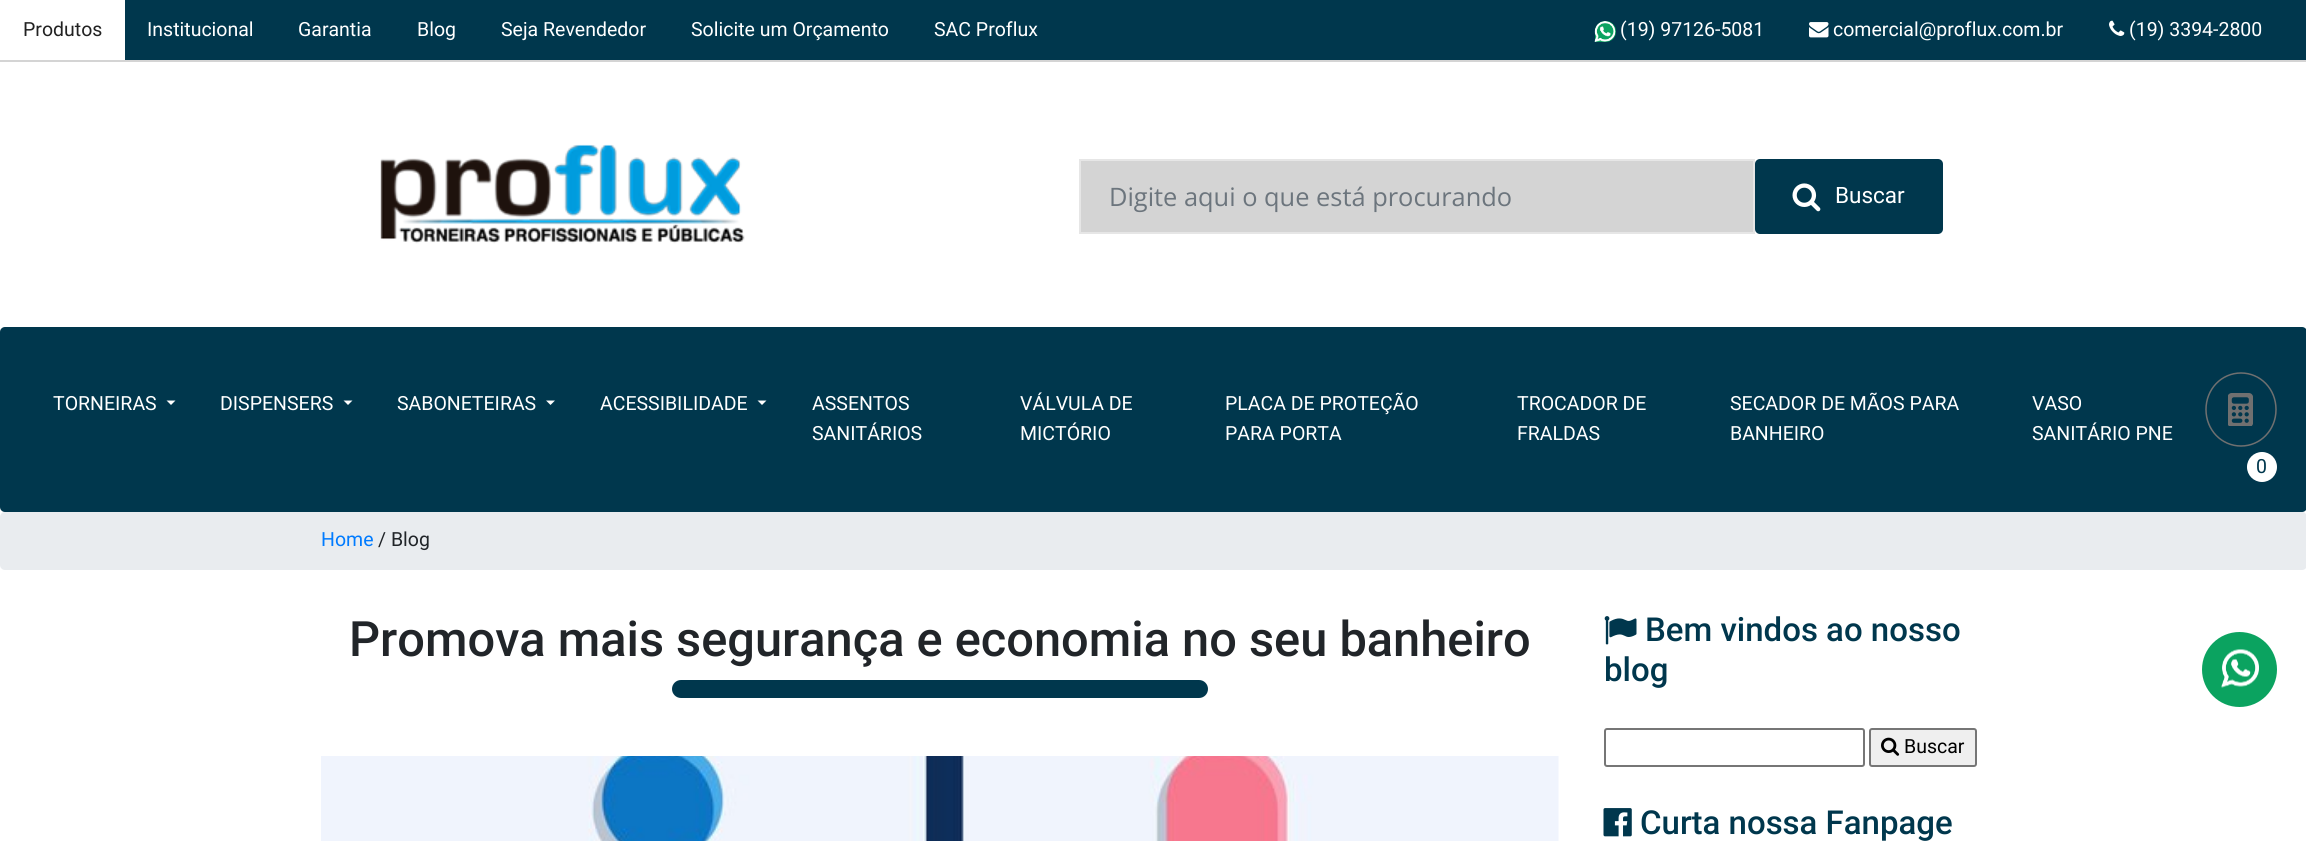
#include <cairo.h>
#include <math.h>
#include <stddef.h>


static void rgb(cairo_t *cr, int r, int g, int b)
{
	cairo_set_source_rgb(cr, r / 255.0, g / 255.0, b / 255.0);
}

static void face(cairo_t *cr, const char *family, double size, int italic, int bold)
{
	cairo_select_font_face(cr, family, italic ? CAIRO_FONT_SLANT_ITALIC : CAIRO_FONT_SLANT_NORMAL,
		bold ? CAIRO_FONT_WEIGHT_BOLD : CAIRO_FONT_WEIGHT_NORMAL);
	cairo_set_font_size(cr, size);
}

static void label(cairo_t *cr, double x, double y, const char *s)
{
	cairo_move_to(cr, x, y);
	cairo_show_text(cr, s);
}

static void rect(cairo_t *cr, double x, double y, double w, double h)
{
	cairo_rectangle(cr, x, y, w, h);
	cairo_fill(cr);
}

static void rrect(cairo_t *cr, double x, double y, double w, double h, double r)
{
	cairo_new_sub_path(cr);
	cairo_arc(cr, x + w - r, y + h - r, r, 0, M_PI / 2);
	cairo_arc(cr, x + r, y + h - r, r, M_PI / 2, M_PI);
	cairo_arc(cr, x + r, y + r, r, M_PI, 1.5 * M_PI);
	cairo_arc(cr, x + w - r, y + r, r, 1.5 * M_PI, 2 * M_PI);
	cairo_close_path(cr);
}

static void image(cairo_t *cr, const char *path, double x, double y, double w, double h)
{
	cairo_surface_t *image = cairo_image_surface_create_from_png(path);
	cairo_save(cr);
	cairo_set_source_surface(cr, image, x, y);
	cairo_rectangle(cr, x, y, w, h);
	cairo_fill(cr);
	cairo_restore(cr);
	cairo_surface_destroy(image);
}

static void draw(cairo_t *cr) {
	rgb(cr, 255, 255, 255);
	cairo_paint(cr);
	rgb(cr, 0, 55, 77);
	rect(cr, 125, 0, 2181, 60);
	rgb(cr, 212, 212, 212);
	rect(cr, 0, 60, 2306, 2);
	face(cr, "Roboto", 19.5, 0, 0);
	rgb(cr, 34, 34, 34);
	label(cr, 23, 36, "Produtos");
	rgb(cr, 255, 255, 255);
	label(cr, 147, 36, "Institucional");
	label(cr, 298, 36, "Garantia");
	label(cr, 417, 36, "Blog");
	label(cr, 501, 36, "Seja Revendedor");
	label(cr, 691, 36, "Solicite um Orçamento");
	label(cr, 934, 36, "SAC Proflux");
	rgb(cr, 11, 163, 96);
	cairo_new_path(cr);
	cairo_move_to(cr, 1605.5, 21);
	cairo_curve_to(cr, 1611.5, 21, 1616, 25.5, 1616, 31.5);
	cairo_curve_to(cr, 1616, 37.5, 1611.5, 42, 1605.5, 42);
	cairo_line_to(cr, 1595, 42);
	cairo_line_to(cr, 1595, 31.5);
	cairo_curve_to(cr, 1595, 25.5, 1599.5, 21, 1605.5, 21);
	cairo_close_path(cr);
	cairo_fill(cr);
	image(cr, "image0.png", 1594, 21, 22, 21);
	rgb(cr, 255, 255, 255);
	label(cr, 1620, 36, "(19) 97126-5081");
	image(cr, "image1.png", 1809, 22, 20, 16);
	label(cr, 1833, 36, "comercial@proflux.com.br");
	image(cr, "image2.png", 2109, 20, 16, 16);
	label(cr, 2129, 36, "(19) 3394-2800");
	image(cr, "image3.png", 380, 144, 365, 100);
	rgb(cr, 212, 212, 212);
	cairo_rectangle(cr, 1080, 160, 674, 73);
	cairo_fill_preserve(cr);
	rgb(cr, 230, 230, 230);
	cairo_stroke(cr);
	face(cr, "Open Sans", 25.4, 0, 0);
	rgb(cr, 108, 117, 125);
	label(cr, 1109, 206, "Digite aqui o que está procurando");
	rgb(cr, 0, 55, 77);
	rrect(cr, 1755, 159, 188, 75, 5);
	cairo_fill(cr);
	image(cr, "image4.png", 1792, 183, 29, 29);
	face(cr, "Roboto", 22.5, 0, 0);
	rgb(cr, 255, 255, 255);
	label(cr, 1835, 203, "Buscar");
	rgb(cr, 0, 55, 77);
	rrect(cr, 0, 327, 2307, 185, 5);
	cairo_fill(cr);
	face(cr, "Roboto", 19.5, 0, 0);
	rgb(cr, 255, 255, 255);
	label(cr, 53, 410, "TORNEIRAS");
	cairo_new_path(cr);
	cairo_move_to(cr, 166.5, 400.5);
	cairo_line_to(cr, 175.5, 400.5);
	cairo_line_to(cr, 171, 405);
	cairo_close_path(cr);
	cairo_fill(cr);
	label(cr, 220, 410, "DISPENSERS");
	cairo_new_path(cr);
	cairo_move_to(cr, 343.5, 400.5);
	cairo_line_to(cr, 352.5, 400.5);
	cairo_line_to(cr, 348, 405);
	cairo_close_path(cr);
	cairo_fill(cr);
	label(cr, 397, 410, "SABONETEIRAS");
	cairo_new_path(cr);
	cairo_move_to(cr, 546, 400.5);
	cairo_line_to(cr, 555, 400.5);
	cairo_line_to(cr, 550.5, 405);
	cairo_close_path(cr);
	cairo_fill(cr);
	label(cr, 600, 410, "ACESSIBILIDADE");
	cairo_new_path(cr);
	cairo_move_to(cr, 757.5, 400.5);
	cairo_line_to(cr, 766.5, 400.5);
	cairo_line_to(cr, 762, 405);
	cairo_close_path(cr);
	cairo_fill(cr);
	label(cr, 812, 410, "ASSENTOS");
	label(cr, 812, 440, "SANITÁRIOS");
	label(cr, 1020, 410, "VÁLVULA DE");
	label(cr, 1020, 440, "MICTÓRIO");
	label(cr, 1225, 410, "PLACA DE PROTEÇÃO");
	label(cr, 1225, 440, "PARA PORTA");
	label(cr, 1517, 410, "TROCADOR DE");
	label(cr, 1517, 440, "FRALDAS");
	label(cr, 1730, 410, "SECADOR DE MÃOS PARA");
	label(cr, 1730, 440, "BANHEIRO");
	label(cr, 2032, 410, "VASO");
	label(cr, 2032, 440, "SANITÁRIO PNE");
	cairo_new_path(cr);
	cairo_move_to(cr, 2241, 373);
	cairo_curve_to(cr, 2260.5, 373, 2276, 389, 2276, 409.5);
	cairo_curve_to(cr, 2276, 430, 2260.5, 446, 2241, 446);
	cairo_curve_to(cr, 2221.5, 446, 2206, 430, 2206, 409.5);
	cairo_curve_to(cr, 2206, 389, 2221.5, 373, 2241, 373);
	cairo_close_path(cr);
	rgb(cr, 112, 112, 112);
	cairo_set_line_width(cr, 1.5);
	cairo_stroke(cr);
	image(cr, "image5.png", 2228, 393, 25, 33);
	rgb(cr, 255, 255, 255);
	cairo_arc(cr, 2262, 467, 15, 0, 2 * M_PI);
	cairo_fill(cr);
	rgb(cr, 0, 55, 77);
	label(cr, 2256, 473, "0");
	rgb(cr, 233, 236, 239);
	rrect(cr, 0, 512, 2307, 58, 5);
	cairo_fill(cr);
	rgb(cr, 0, 123, 255);
	label(cr, 321, 546, "Home");
	rgb(cr, 33, 37, 41);
	label(cr, 378, 546, "/ Blog");
	face(cr, "Roboto Medium", 48.75, 0, 0);
	label(cr, 349, 656, "Promova mais segurança e economia no seu banheiro");
	rgb(cr, 0, 55, 77);
	rrect(cr, 672, 680, 536, 18, 9);
	cairo_fill(cr);
	image(cr, "image6.png", 321, 756, 1238, 85);
	image(cr, "image7.png", 1604, 616, 33, 29);
	face(cr, "Roboto Medium", 33, 0, 0);
	label(cr, 1645, 641, "Bem vindos ao nosso");
	label(cr, 1604, 681, "blog");
	rrect(cr, 1605, 729, 259, 37, 2);
	rgb(cr, 118, 118, 118);
	cairo_set_line_width(cr, 2);
	cairo_stroke(cr);
	rgb(cr, 239, 239, 239);
	rrect(cr, 1870, 729, 106, 37, 2);
	cairo_fill_preserve(cr);
	rgb(cr, 118, 118, 118);
	cairo_stroke(cr);
	image(cr, "image8.png", 1881, 737, 19, 19);
	face(cr, "Roboto", 19.5, 0, 0);
	rgb(cr, 0, 0, 0);
	label(cr, 1904, 753, "Buscar");
	image(cr, "image9.png", 1603, 808, 29, 29);
	face(cr, "Roboto Medium", 33, 0, 0);
	rgb(cr, 0, 55, 77);
	label(cr, 1640, 834, "Curta nossa Fanpage");
	rgb(cr, 11, 163, 96);
	cairo_new_path(cr);
	cairo_arc(cr, 2239.5, 669.5, 37.5, 0, 2 * M_PI);
	cairo_fill(cr);
	image(cr, "image10.png", 2221, 649, 38, 39);
}

int main(void) {
	cairo_surface_t *surface = cairo_image_surface_create(CAIRO_FORMAT_RGB24, 2306, 841);
	cairo_t *cr = cairo_create(surface);
	cairo_font_options_t *options = cairo_font_options_create();
	cairo_font_options_set_hint_metrics(options, CAIRO_HINT_METRICS_OFF);
	cairo_font_options_set_hint_style(options, CAIRO_HINT_STYLE_NONE);
	cairo_set_font_options(cr, options);
	cairo_set_miter_limit(cr, 4);
	draw(cr);
	cairo_surface_write_to_png(surface, "render.png");
	cairo_font_options_destroy(options);
	cairo_destroy(cr);
	cairo_surface_destroy(surface);
	return 0;
}
